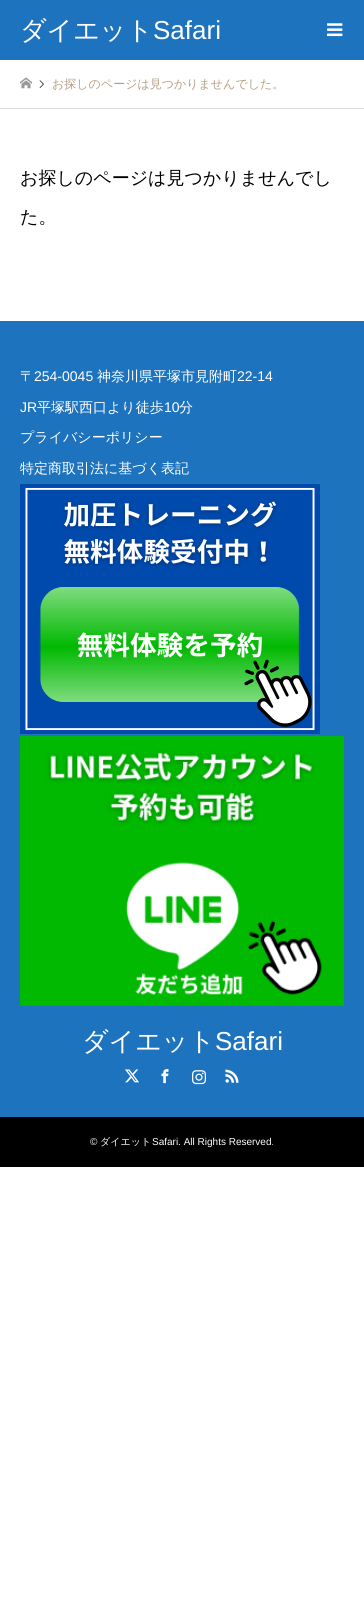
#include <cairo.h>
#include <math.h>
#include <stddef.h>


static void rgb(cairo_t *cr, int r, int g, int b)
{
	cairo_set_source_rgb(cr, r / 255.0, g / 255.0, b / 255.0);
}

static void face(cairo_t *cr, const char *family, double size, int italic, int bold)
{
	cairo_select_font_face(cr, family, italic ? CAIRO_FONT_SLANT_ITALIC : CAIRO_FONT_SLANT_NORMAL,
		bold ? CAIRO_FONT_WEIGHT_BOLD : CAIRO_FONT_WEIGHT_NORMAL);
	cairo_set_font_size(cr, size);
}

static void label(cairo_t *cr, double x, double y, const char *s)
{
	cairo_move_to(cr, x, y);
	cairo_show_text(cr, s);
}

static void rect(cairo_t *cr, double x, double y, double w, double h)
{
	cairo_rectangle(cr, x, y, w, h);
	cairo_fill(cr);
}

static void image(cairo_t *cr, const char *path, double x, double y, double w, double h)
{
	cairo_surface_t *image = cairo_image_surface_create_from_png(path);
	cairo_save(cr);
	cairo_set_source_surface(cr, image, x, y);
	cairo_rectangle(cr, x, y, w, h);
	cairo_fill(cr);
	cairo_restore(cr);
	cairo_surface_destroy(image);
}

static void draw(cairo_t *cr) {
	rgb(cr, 255, 255, 255);
	cairo_paint(cr);
	rgb(cr, 30, 115, 190);
	rect(cr, 0, 0, 364, 60);
	face(cr, "WenQuanYi Zen Hei Medium", 26, 0, 0);
	rgb(cr, 255, 255, 255);
	label(cr, 20, 39, "ダイエット");
	face(cr, "Liberation Sans", 26, 0, 0);
	label(cr, 153, 39, "Safari");
	image(cr, "image0.png", 327, 23, 16, 14);
	rgb(cr, 221, 221, 221);
	rect(cr, 0, 108, 364, 1);
	image(cr, "image1.png", 20, 77, 12, 12);
	image(cr, "image2.png", 39, 80, 5, 8);
	face(cr, "WenQuanYi Zen Hei Medium", 12, 0, 0);
	rgb(cr, 182, 158, 132);
	label(cr, 52, 88, "お探しのページは見つかりませんでした。");
	face(cr, "WenQuanYi Zen Hei Medium", 18, 0, 0);
	rgb(cr, 0, 0, 0);
	label(cr, 20, 184, "お探しのページは見つかりませんでし");
	label(cr, 20, 223, "た。");
	rgb(cr, 30, 115, 190);
	rect(cr, 0, 321, 364, 796);
	face(cr, "WenQuanYi Zen Hei Medium", 14, 0, 0);
	rgb(cr, 255, 255, 255);
	label(cr, 20, 381, "〒");
	face(cr, "Liberation Sans", 14, 0, 0);
	label(cr, 34, 381, "254-0045");
	face(cr, "WenQuanYi Zen Hei Medium", 14, 0, 0);
	label(cr, 97, 381, "神奈川県平塚市見附町");
	face(cr, "Liberation Sans", 14, 0, 0);
	label(cr, 237, 381, "22-14");
	label(cr, 20, 412, "JR");
	face(cr, "WenQuanYi Zen Hei Medium", 14, 0, 0);
	label(cr, 37, 412, "平塚駅西口より徒歩");
	face(cr, "Liberation Sans", 14, 0, 0);
	label(cr, 164, 412, "10");
	face(cr, "WenQuanYi Zen Hei Medium", 14, 0, 0);
	label(cr, 179, 412, "分");
	label(cr, 20, 442, "プライバシーポリシー");
	label(cr, 20, 473, "特定商取引法に基づく表記");
	image(cr, "image3.png", 20, 484, 300, 250);
	image(cr, "image4.png", 20, 736, 324, 270);
	face(cr, "WenQuanYi Zen Hei Medium", 26, 0, 0);
	label(cr, 82, 1050, "ダイエット");
	face(cr, "Liberation Sans", 26, 0, 0);
	label(cr, 215, 1050, "Safari");
	image(cr, "image5.png", 125, 1069, 14, 14);
	image(cr, "image6.png", 161, 1069, 8, 15);
	image(cr, "image7.png", 192, 1070, 14, 15);
	image(cr, "image8.png", 225, 1069, 14, 14);
	rgb(cr, 0, 0, 0);
	rect(cr, 0, 1117, 364, 50);
	face(cr, "Liberation Sans", 10, 0, 0);
	rgb(cr, 255, 255, 255);
	label(cr, 90, 1145, "©");
	face(cr, "WenQuanYi Zen Hei Medium", 10, 0, 0);
	label(cr, 100, 1145, "ダイエット");
	face(cr, "Liberation Sans", 10, 0, 0);
	label(cr, 152, 1145, "Safari. All Rights Reserved.");
}

int main(void) {
	cairo_surface_t *surface = cairo_image_surface_create(CAIRO_FORMAT_RGB24, 364, 1619);
	cairo_t *cr = cairo_create(surface);
	cairo_font_options_t *options = cairo_font_options_create();
	cairo_font_options_set_hint_metrics(options, CAIRO_HINT_METRICS_OFF);
	cairo_font_options_set_hint_style(options, CAIRO_HINT_STYLE_NONE);
	cairo_set_font_options(cr, options);
	cairo_set_miter_limit(cr, 4);
	draw(cr);
	cairo_surface_write_to_png(surface, "render.png");
	cairo_font_options_destroy(options);
	cairo_destroy(cr);
	cairo_surface_destroy(surface);
	return 0;
}
